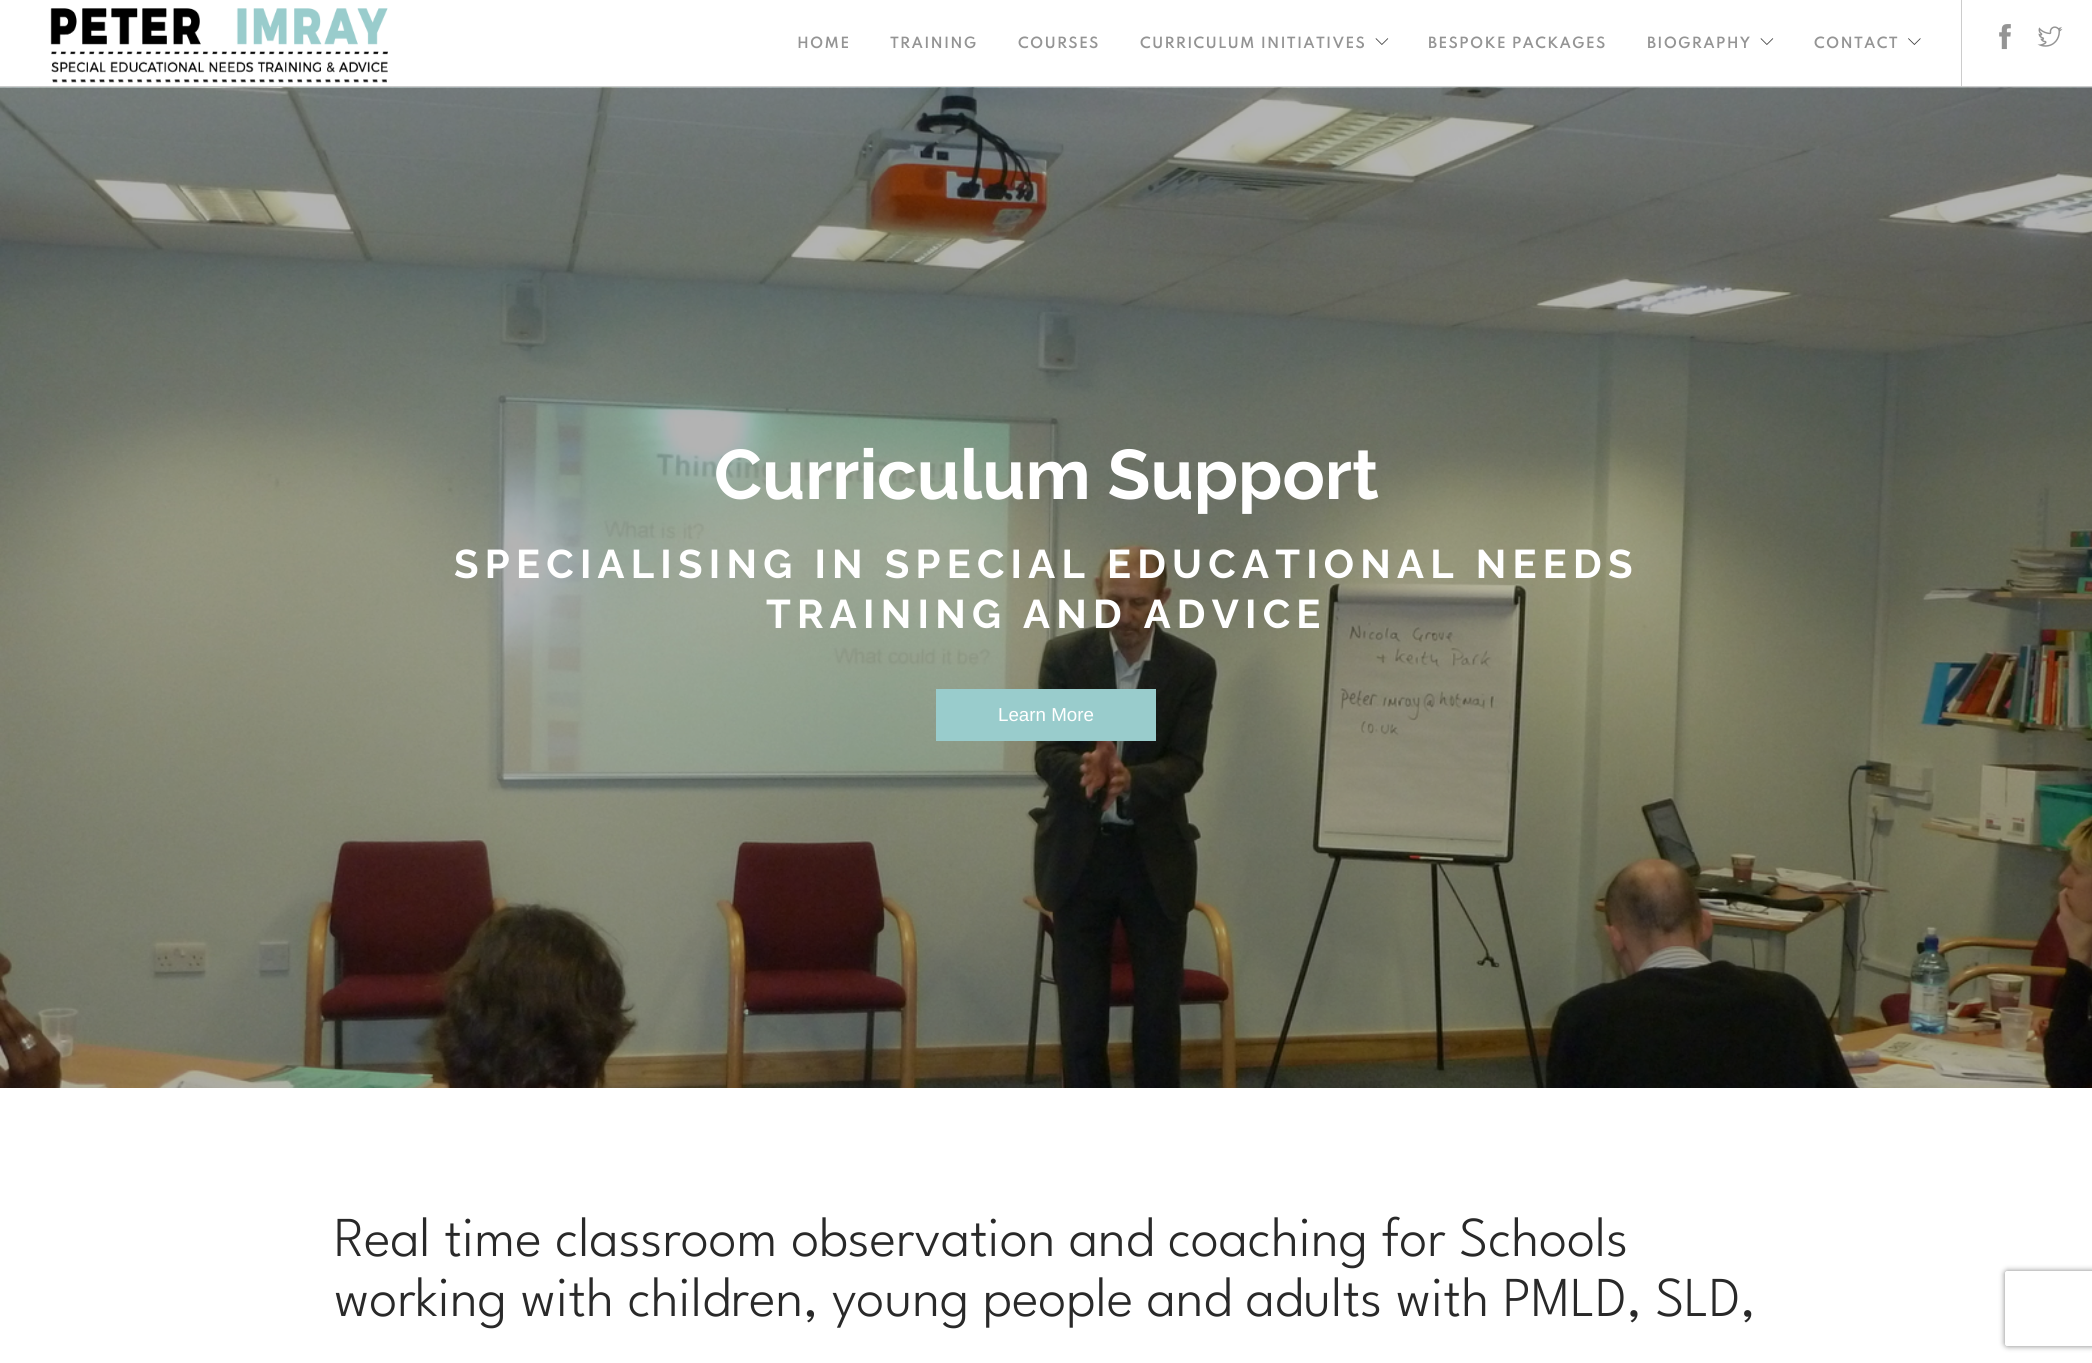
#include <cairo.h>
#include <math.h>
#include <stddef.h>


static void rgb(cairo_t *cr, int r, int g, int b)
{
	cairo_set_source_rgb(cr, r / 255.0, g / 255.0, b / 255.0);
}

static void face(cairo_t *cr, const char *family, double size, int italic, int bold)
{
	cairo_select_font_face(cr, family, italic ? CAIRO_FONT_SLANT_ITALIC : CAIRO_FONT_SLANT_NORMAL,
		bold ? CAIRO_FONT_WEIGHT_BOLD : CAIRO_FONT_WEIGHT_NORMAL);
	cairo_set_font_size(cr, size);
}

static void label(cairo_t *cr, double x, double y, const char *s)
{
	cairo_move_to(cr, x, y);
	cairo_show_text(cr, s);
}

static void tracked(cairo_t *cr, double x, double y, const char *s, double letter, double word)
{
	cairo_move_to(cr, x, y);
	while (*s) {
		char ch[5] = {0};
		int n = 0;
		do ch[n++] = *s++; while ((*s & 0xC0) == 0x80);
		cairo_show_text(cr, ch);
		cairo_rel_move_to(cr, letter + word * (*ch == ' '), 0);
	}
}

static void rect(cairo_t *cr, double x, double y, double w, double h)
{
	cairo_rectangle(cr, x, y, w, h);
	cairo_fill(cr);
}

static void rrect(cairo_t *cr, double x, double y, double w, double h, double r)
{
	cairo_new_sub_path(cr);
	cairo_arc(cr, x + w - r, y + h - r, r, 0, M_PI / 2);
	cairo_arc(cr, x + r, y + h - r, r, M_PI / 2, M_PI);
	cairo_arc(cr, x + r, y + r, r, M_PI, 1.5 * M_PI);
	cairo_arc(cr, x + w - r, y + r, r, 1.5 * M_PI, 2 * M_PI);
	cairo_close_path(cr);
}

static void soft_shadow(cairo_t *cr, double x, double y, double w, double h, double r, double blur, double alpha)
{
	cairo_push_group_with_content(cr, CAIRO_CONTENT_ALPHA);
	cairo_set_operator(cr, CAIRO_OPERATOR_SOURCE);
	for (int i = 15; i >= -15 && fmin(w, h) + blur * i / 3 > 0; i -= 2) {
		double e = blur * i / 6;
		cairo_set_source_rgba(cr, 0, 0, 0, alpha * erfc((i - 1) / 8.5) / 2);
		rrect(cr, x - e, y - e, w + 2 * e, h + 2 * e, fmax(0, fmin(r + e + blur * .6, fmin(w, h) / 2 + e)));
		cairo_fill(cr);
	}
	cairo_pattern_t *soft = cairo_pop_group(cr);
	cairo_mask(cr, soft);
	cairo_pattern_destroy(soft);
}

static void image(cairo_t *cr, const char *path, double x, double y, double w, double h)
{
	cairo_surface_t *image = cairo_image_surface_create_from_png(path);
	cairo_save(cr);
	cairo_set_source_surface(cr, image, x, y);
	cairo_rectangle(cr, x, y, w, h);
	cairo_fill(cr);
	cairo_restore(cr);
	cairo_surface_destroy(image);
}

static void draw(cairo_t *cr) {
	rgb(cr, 255, 255, 255);
	cairo_paint(cr);
	rgb(cr, 204, 204, 204);
	rect(cr, 0, 86, 2092, 1);
	image(cr, "image0.png", 50, 8, 338, 75);
	face(cr, "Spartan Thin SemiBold", 13.75, 0, 0);
	rgb(cr, 148, 148, 148);
	tracked(cr, 797, 48, "HOME", 1.25, 0);
	tracked(cr, 890, 48, "TRAINING", 1.25, 0);
	tracked(cr, 1018, 48, "COURSES", 1.25, 0);
	tracked(cr, 1140, 48, "CURRICULUM INITIATIVES", 1.25, 0);
	image(cr, "image1.png", 1375, 38, 14, 7);
	tracked(cr, 1428, 48, "BESPOKE PACKAGES", 1.25, 0);
	tracked(cr, 1647, 48, "BIOGRAPHY", 1.25, 0);
	image(cr, "image1.png", 1760, 38, 14, 7);
	tracked(cr, 1814, 48, "CONTACT", 1.25, 0);
	image(cr, "image2.png", 1908, 38, 13, 7);
	rgb(cr, 204, 204, 204);
	rect(cr, 1961, 0, 1, 88);
	image(cr, "image3.png", 1999, 24, 12, 26);
	image(cr, "image4.png", 2037, 26, 26, 21);
	image(cr, "image5.png", 0, 87, 2092, 1001);
	face(cr, "Raleway", 70, 0, 1);
	rgb(cr, 255, 255, 255);
	label(cr, 714, 499, "Curriculum Support");
	face(cr, "Raleway", 40, 0, 1);
	tracked(cr, 454, 578, "SPECIALISING IN SPECIAL EDUCATIONAL NEEDS", 6.25, 0);
	tracked(cr, 766, 628, "TRAINING AND ADVICE", 6.25, 0);
	rgb(cr, 153, 204, 204);
	rect(cr, 936, 689, 220, 52);
	face(cr, "Liberation Sans", 18.75, 0, 0);
	rgb(cr, 255, 255, 255);
	label(cr, 998, 721, "Learn More");
	face(cr, "League Spartan Light", 56.25, 0, 0);
	rgb(cr, 41, 41, 41);
	label(cr, 334, 1256, "Real time classroom observation and coaching for Schools");
	label(cr, 334, 1316, "working with children, young people and adults with PMLD, SLD,");
	cairo_save(cr);
	cairo_set_fill_rule(cr, CAIRO_FILL_RULE_EVEN_ODD);
	cairo_new_path(cr);
	cairo_move_to(cr, 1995, 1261);
	cairo_line_to(cr, 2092, 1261);
	cairo_line_to(cr, 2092, 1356);
	cairo_line_to(cr, 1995, 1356);
	cairo_close_path(cr);
	cairo_move_to(cr, 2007.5, 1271);
	cairo_line_to(cr, 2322.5, 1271);
	cairo_curve_to(cr, 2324, 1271, 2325, 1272, 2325, 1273.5);
	cairo_line_to(cr, 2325, 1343.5);
	cairo_curve_to(cr, 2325, 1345, 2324, 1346, 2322.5, 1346);
	cairo_line_to(cr, 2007.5, 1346);
	cairo_curve_to(cr, 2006, 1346, 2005, 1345, 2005, 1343.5);
	cairo_line_to(cr, 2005, 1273.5);
	cairo_curve_to(cr, 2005, 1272, 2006, 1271, 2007.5, 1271);
	cairo_close_path(cr);
	cairo_clip(cr);
	rgb(cr, 128, 128, 128);
	soft_shadow(cr, 2005, 1271, 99, 75, 2.5, 3, 1);
	cairo_restore(cr);
}

int main(void) {
	cairo_surface_t *surface = cairo_image_surface_create(CAIRO_FORMAT_RGB24, 2092, 1363);
	cairo_t *cr = cairo_create(surface);
	cairo_font_options_t *options = cairo_font_options_create();
	cairo_font_options_set_hint_metrics(options, CAIRO_HINT_METRICS_OFF);
	cairo_font_options_set_hint_style(options, CAIRO_HINT_STYLE_NONE);
	cairo_set_font_options(cr, options);
	cairo_set_miter_limit(cr, 4);
	draw(cr);
	cairo_surface_write_to_png(surface, "render.png");
	cairo_font_options_destroy(options);
	cairo_destroy(cr);
	cairo_surface_destroy(surface);
	return 0;
}
